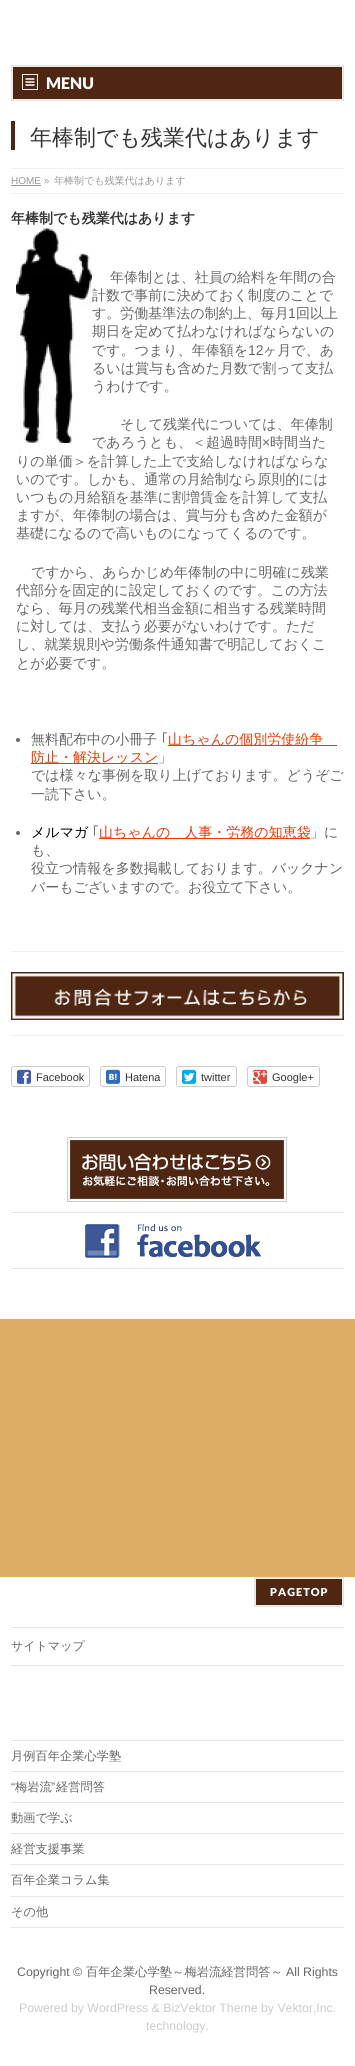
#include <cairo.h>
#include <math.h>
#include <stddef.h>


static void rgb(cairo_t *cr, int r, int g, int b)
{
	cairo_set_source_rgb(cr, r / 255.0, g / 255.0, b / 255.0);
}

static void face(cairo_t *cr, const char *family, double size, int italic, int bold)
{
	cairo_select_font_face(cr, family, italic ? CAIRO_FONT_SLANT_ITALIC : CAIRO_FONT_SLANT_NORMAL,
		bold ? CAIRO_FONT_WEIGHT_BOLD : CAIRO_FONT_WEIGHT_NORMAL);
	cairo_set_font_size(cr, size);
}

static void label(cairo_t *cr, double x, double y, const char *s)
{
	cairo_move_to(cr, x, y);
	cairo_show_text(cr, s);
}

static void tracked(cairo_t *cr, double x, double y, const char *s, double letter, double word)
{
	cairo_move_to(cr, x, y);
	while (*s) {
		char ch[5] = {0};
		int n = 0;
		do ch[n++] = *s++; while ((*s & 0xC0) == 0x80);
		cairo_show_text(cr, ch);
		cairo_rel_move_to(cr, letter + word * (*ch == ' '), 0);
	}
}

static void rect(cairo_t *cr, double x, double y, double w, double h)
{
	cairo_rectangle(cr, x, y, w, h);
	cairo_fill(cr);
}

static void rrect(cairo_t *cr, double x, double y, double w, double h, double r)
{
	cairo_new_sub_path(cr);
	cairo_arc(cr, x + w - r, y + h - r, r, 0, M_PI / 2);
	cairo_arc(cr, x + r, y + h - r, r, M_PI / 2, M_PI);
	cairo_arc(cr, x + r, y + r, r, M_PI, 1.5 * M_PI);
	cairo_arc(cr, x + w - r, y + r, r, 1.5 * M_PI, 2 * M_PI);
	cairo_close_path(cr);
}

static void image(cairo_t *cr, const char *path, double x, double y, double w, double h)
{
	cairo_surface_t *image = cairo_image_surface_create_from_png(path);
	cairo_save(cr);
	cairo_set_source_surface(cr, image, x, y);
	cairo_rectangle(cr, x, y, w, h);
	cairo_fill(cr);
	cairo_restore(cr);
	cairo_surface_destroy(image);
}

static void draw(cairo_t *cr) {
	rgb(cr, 221, 173, 102);
	cairo_paint(cr);
	rgb(cr, 255, 255, 255);
	rect(cr, 0, 0, 355, 101);
	rgb(cr, 79, 38, 18);
	cairo_rectangle(cr, 12.5, 66.5, 330, 33);
	cairo_fill_preserve(cr);
	rgb(cr, 237, 233, 231);
	cairo_set_line_width(cr, 1);
	cairo_stroke(cr);
	cairo_rectangle(cr, 11.5, 65.5, 332, 35);
	rgb(cr, 229, 229, 229);
	cairo_stroke(cr);
	image(cr, "image0.png", 22, 74, 16, 16);
	face(cr, "Lato Black", 16, 0, 0);
	rgb(cr, 255, 255, 255);
	label(cr, 46, 89, "MENU");
	rect(cr, 0, 101, 355, 67);
	rgb(cr, 79, 38, 18);
	rect(cr, 11, 121, 4, 29);
	face(cr, "WenQuanYi Zen Hei Medium", 22, 0, 0);
	rgb(cr, 51, 51, 51);
	label(cr, 30, 145, "年棒制でも残業代はあります");
	rgb(cr, 255, 255, 255);
	rect(cr, 0, 168, 355, 1151);
	cairo_new_path(cr);
	cairo_move_to(cr, 11, 168.5);
	cairo_line_to(cr, 344, 168.5);
	rgb(cr, 229, 229, 229);
	cairo_set_dash(cr, (double[]){1, 1}, 2, 0);
	cairo_stroke(cr);
	cairo_new_path(cr);
	cairo_move_to(cr, 11, 193.5);
	cairo_line_to(cr, 344, 193.5);
	cairo_stroke(cr);
	face(cr, "Liberation Sans", 10, 0, 0);
	rgb(cr, 153, 153, 153);
	label(cr, 11, 184, "HOME »");
	rect(cr, 11, 185, 30, 1);
	face(cr, "WenQuanYi Zen Hei Medium", 10, 0, 0);
	label(cr, 54, 184, "年棒制でも残業代はあります");
	face(cr, "WenQuanYi Zen Hei", 14, 0, 1);
	rgb(cr, 51, 51, 51);
	label(cr, 11, 223, "年棒制でも残業代はあります");
	image(cr, "image1.png", 16, 228, 76, 215);
	face(cr, "WenQuanYi Zen Hei Medium", 14, 0, 0);
	rgb(cr, 102, 102, 102);
	label(cr, 110, 282, "年俸制とは、社員の給料を年間の合");
	label(cr, 92, 300, "計数で事前に決めておく制度のことで");
	label(cr, 92, 318, "す。労働基準法の制約上、毎月");
	face(cr, "Liberation Sans", 14, 0, 0);
	label(cr, 288, 318, "1");
	face(cr, "WenQuanYi Zen Hei Medium", 14, 0, 0);
	label(cr, 296, 318, "回以上");
	label(cr, 92, 336, "期日を定めて払わなければならないの");
	label(cr, 92, 355, "です。つまり、年俸額を");
	face(cr, "Liberation Sans", 14, 0, 0);
	label(cr, 248, 355, "12");
	face(cr, "WenQuanYi Zen Hei Medium", 14, 0, 0);
	label(cr, 263, 355, "ヶ月で、あ");
	label(cr, 92, 373, "るいは賞与も含めた月数で割って支払");
	label(cr, 92, 391, "うわけです。");
	label(cr, 120, 429, "そして残業代については、年俸制");
	label(cr, 92, 447, "であろうとも、＜超過時間");
	face(cr, "Liberation Sans", 14, 0, 0);
	label(cr, 262, 447, "×");
	face(cr, "WenQuanYi Zen Hei Medium", 14, 0, 0);
	label(cr, 270, 447, "時間当た");
	label(cr, 16, 466, "りの単価＞を計算した上で支給しなければならな");
	label(cr, 16, 484, "いのです。しかも、通常の月給制なら原則的には");
	label(cr, 16, 502, "いつもの月給額を基準に割増賃金を計算して支払");
	label(cr, 16, 520, "ますが、年俸制の場合は、賞与分も含めた金額が");
	label(cr, 16, 538, "基礎になるので高いものになってくるのです。");
	label(cr, 31, 577, "ですから、あらかじめ年俸制の中に明確に残業");
	label(cr, 16, 595, "代部分を固定的に設定しておくのです。この方法");
	label(cr, 16, 613, "なら、毎月の残業代相当金額に相当する残業時間");
	label(cr, 16, 631, "に対しては、支払う必要がないわけです。ただ");
	label(cr, 16, 649, "し、就業規則や労働条件通知書で明記しておくこ");
	label(cr, 16, 668, "とが必要です。");
	cairo_new_path(cr);
	cairo_arc(cr, 18, 740, 2, 0, 2 * M_PI);
	cairo_fill(cr);
	label(cr, 31, 744, "無料配布中の小冊子");
	face(cr, "IPAPGothic", 14, 0, 0);
	label(cr, 161, 744, "｢");
	rgb(cr, 242, 56, 0);
	rect(cr, 168, 745, 169, 1);
	face(cr, "WenQuanYi Zen Hei Medium", 14, 0, 0);
	label(cr, 168, 744, "山ちゃんの個別労使紛争");
	rect(cr, 31, 763, 127, 1);
	label(cr, 31, 762, "防止・解決レッスン");
	rgb(cr, 102, 102, 102);
	label(cr, 158, 762, "」");
	label(cr, 31, 780, "では様々な事例を取り上げております。どうぞご");
	label(cr, 31, 799, "一読下さい。");
	cairo_new_path(cr);
	cairo_arc(cr, 18, 833, 2, 0, 2 * M_PI);
	cairo_fill(cr);
	rgb(cr, 0, 0, 0);
	label(cr, 31, 837, "メルマガ");
	face(cr, "IPAPGothic", 14, 0, 0);
	rgb(cr, 102, 102, 102);
	label(cr, 92, 837, "｢");
	rgb(cr, 242, 56, 0);
	rect(cr, 99, 838, 211, 1);
	face(cr, "WenQuanYi Zen Hei Medium", 14, 0, 0);
	label(cr, 99, 837, "山ちゃんの　人事・労務の知恵袋");
	rgb(cr, 102, 102, 102);
	label(cr, 310, 837, "」に");
	label(cr, 31, 855, "も、");
	label(cr, 31, 873, "役立つ情報を多数掲載しております。バックナン");
	label(cr, 31, 892, "バーもございますので。お役立て下さい。");
	cairo_new_path(cr);
	cairo_move_to(cr, 11, 951.5);
	cairo_line_to(cr, 344, 951.5);
	rgb(cr, 229, 229, 229);
	cairo_stroke(cr);
	cairo_new_path(cr);
	cairo_move_to(cr, 11, 1035.5);
	cairo_line_to(cr, 344, 1035.5);
	cairo_stroke(cr);
	rgb(cr, 79, 38, 18);
	rect(cr, 11, 972, 333, 48);
	image(cr, "image2.png", 12, 973, 331, 47);
	rrect(cr, 11.5, 1066.5, 78, 20, 2.5);
	rgb(cr, 204, 204, 204);
	cairo_set_dash(cr, NULL, 0, 0);
	cairo_stroke(cr);
	image(cr, "image3.png", 17, 1069, 14, 15);
	face(cr, "Liberation Sans", 11, 0, 0);
	rgb(cr, 51, 51, 51);
	label(cr, 36, 1081, "Facebook");
	rrect(cr, 100.5, 1066.5, 65, 20, 2.5);
	rgb(cr, 204, 204, 204);
	cairo_stroke(cr);
	image(cr, "image4.png", 106, 1069, 14, 15);
	rgb(cr, 51, 51, 51);
	label(cr, 125, 1081, "Hatena");
	rrect(cr, 176.5, 1066.5, 60, 20, 2.5);
	rgb(cr, 204, 204, 204);
	cairo_stroke(cr);
	image(cr, "image5.png", 182, 1069, 14, 15);
	rgb(cr, 51, 51, 51);
	label(cr, 201, 1081, "twitter");
	rrect(cr, 247.5, 1066.5, 72, 20, 2.5);
	rgb(cr, 204, 204, 204);
	cairo_stroke(cr);
	image(cr, "image6.png", 253, 1069, 14, 15);
	rgb(cr, 51, 51, 51);
	label(cr, 272, 1081, "Google+");
	rgb(cr, 79, 38, 18);
	rect(cr, 70, 1140, 214, 59);
	image(cr, "image7.png", 67, 1137, 220, 65);
	rgb(cr, 229, 229, 229);
	rect(cr, 11, 1212, 333, 1);
	rect(cr, 11, 1268, 333, 1);
	image(cr, "image8.png", 85, 1224, 176, 34);
	rgb(cr, 255, 255, 255);
	rect(cr, 0, 1577, 355, 89);
	rgb(cr, 79, 38, 18);
	cairo_rectangle(cr, 255.5, 1578.5, 87, 27);
	cairo_fill_preserve(cr);
	rgb(cr, 237, 233, 231);
	cairo_stroke(cr);
	cairo_rectangle(cr, 254.5, 1577.5, 89, 29);
	rgb(cr, 229, 229, 229);
	cairo_stroke(cr);
	face(cr, "Lato Black", 11, 0, 0);
	rgb(cr, 255, 255, 255);
	tracked(cr, 270, 1596, "PAGETOP", 1, 0);
	rgb(cr, 229, 229, 229);
	rect(cr, 11, 1627, 333, 1);
	rect(cr, 11, 1665, 333, 1);
	face(cr, "WenQuanYi Zen Hei Medium", 12, 0, 0);
	rgb(cr, 102, 102, 102);
	label(cr, 11, 1650, "サイトマップ");
	rgb(cr, 255, 255, 255);
	rect(cr, 0, 1666, 355, 400);
	rgb(cr, 229, 229, 229);
	rect(cr, 11, 1740, 333, 1);
	rect(cr, 11, 1771, 333, 1);
	face(cr, "WenQuanYi Zen Hei Medium", 12.25, 0, 0);
	rgb(cr, 102, 102, 102);
	label(cr, 11, 1760, "月例百年企業心学塾");
	rgb(cr, 229, 229, 229);
	rect(cr, 11, 1802, 333, 1);
	face(cr, "Liberation Sans", 12.25, 0, 0);
	rgb(cr, 102, 102, 102);
	label(cr, 11, 1791, "“");
	face(cr, "WenQuanYi Zen Hei Medium", 12.25, 0, 0);
	label(cr, 15, 1791, "梅岩流");
	face(cr, "Liberation Sans", 12.25, 0, 0);
	label(cr, 51, 1791, "”");
	face(cr, "WenQuanYi Zen Hei Medium", 12.25, 0, 0);
	label(cr, 56, 1791, "経営問答");
	rgb(cr, 229, 229, 229);
	rect(cr, 11, 1833, 333, 1);
	rgb(cr, 102, 102, 102);
	label(cr, 11, 1822, "動画で学ぶ");
	rgb(cr, 229, 229, 229);
	rect(cr, 11, 1864, 333, 1);
	rgb(cr, 102, 102, 102);
	label(cr, 11, 1853, "経営支援事業");
	rgb(cr, 229, 229, 229);
	rect(cr, 11, 1896, 333, 1);
	rgb(cr, 102, 102, 102);
	label(cr, 11, 1884, "百年企業コラム集");
	rgb(cr, 229, 229, 229);
	rect(cr, 11, 1927, 333, 1);
	rgb(cr, 102, 102, 102);
	label(cr, 11, 1916, "その他");
	face(cr, "Liberation Sans", 12.3, 0, 0);
	label(cr, 17, 1976, "Copyright ©");
	face(cr, "WenQuanYi Zen Hei Medium", 12.3, 0, 0);
	label(cr, 86, 1976, "百年企業心学塾～梅岩流経営問答～");
	face(cr, "Liberation Sans", 12.3, 0, 0);
	label(cr, 286, 1976, "All Rights");
	label(cr, 149, 1994, "Reserved.");
	rgb(cr, 204, 204, 204);
	label(cr, 19, 2012, "Powered by WordPress & BizVektor Theme by Vektor,Inc.");
	label(cr, 146, 2030, "technology.");
}

int main(void) {
	cairo_surface_t *surface = cairo_image_surface_create(CAIRO_FORMAT_RGB24, 355, 2066);
	cairo_t *cr = cairo_create(surface);
	cairo_font_options_t *options = cairo_font_options_create();
	cairo_font_options_set_hint_metrics(options, CAIRO_HINT_METRICS_OFF);
	cairo_font_options_set_hint_style(options, CAIRO_HINT_STYLE_NONE);
	cairo_set_font_options(cr, options);
	cairo_set_miter_limit(cr, 4);
	draw(cr);
	cairo_surface_write_to_png(surface, "render.png");
	cairo_font_options_destroy(options);
	cairo_destroy(cr);
	cairo_surface_destroy(surface);
	return 0;
}
